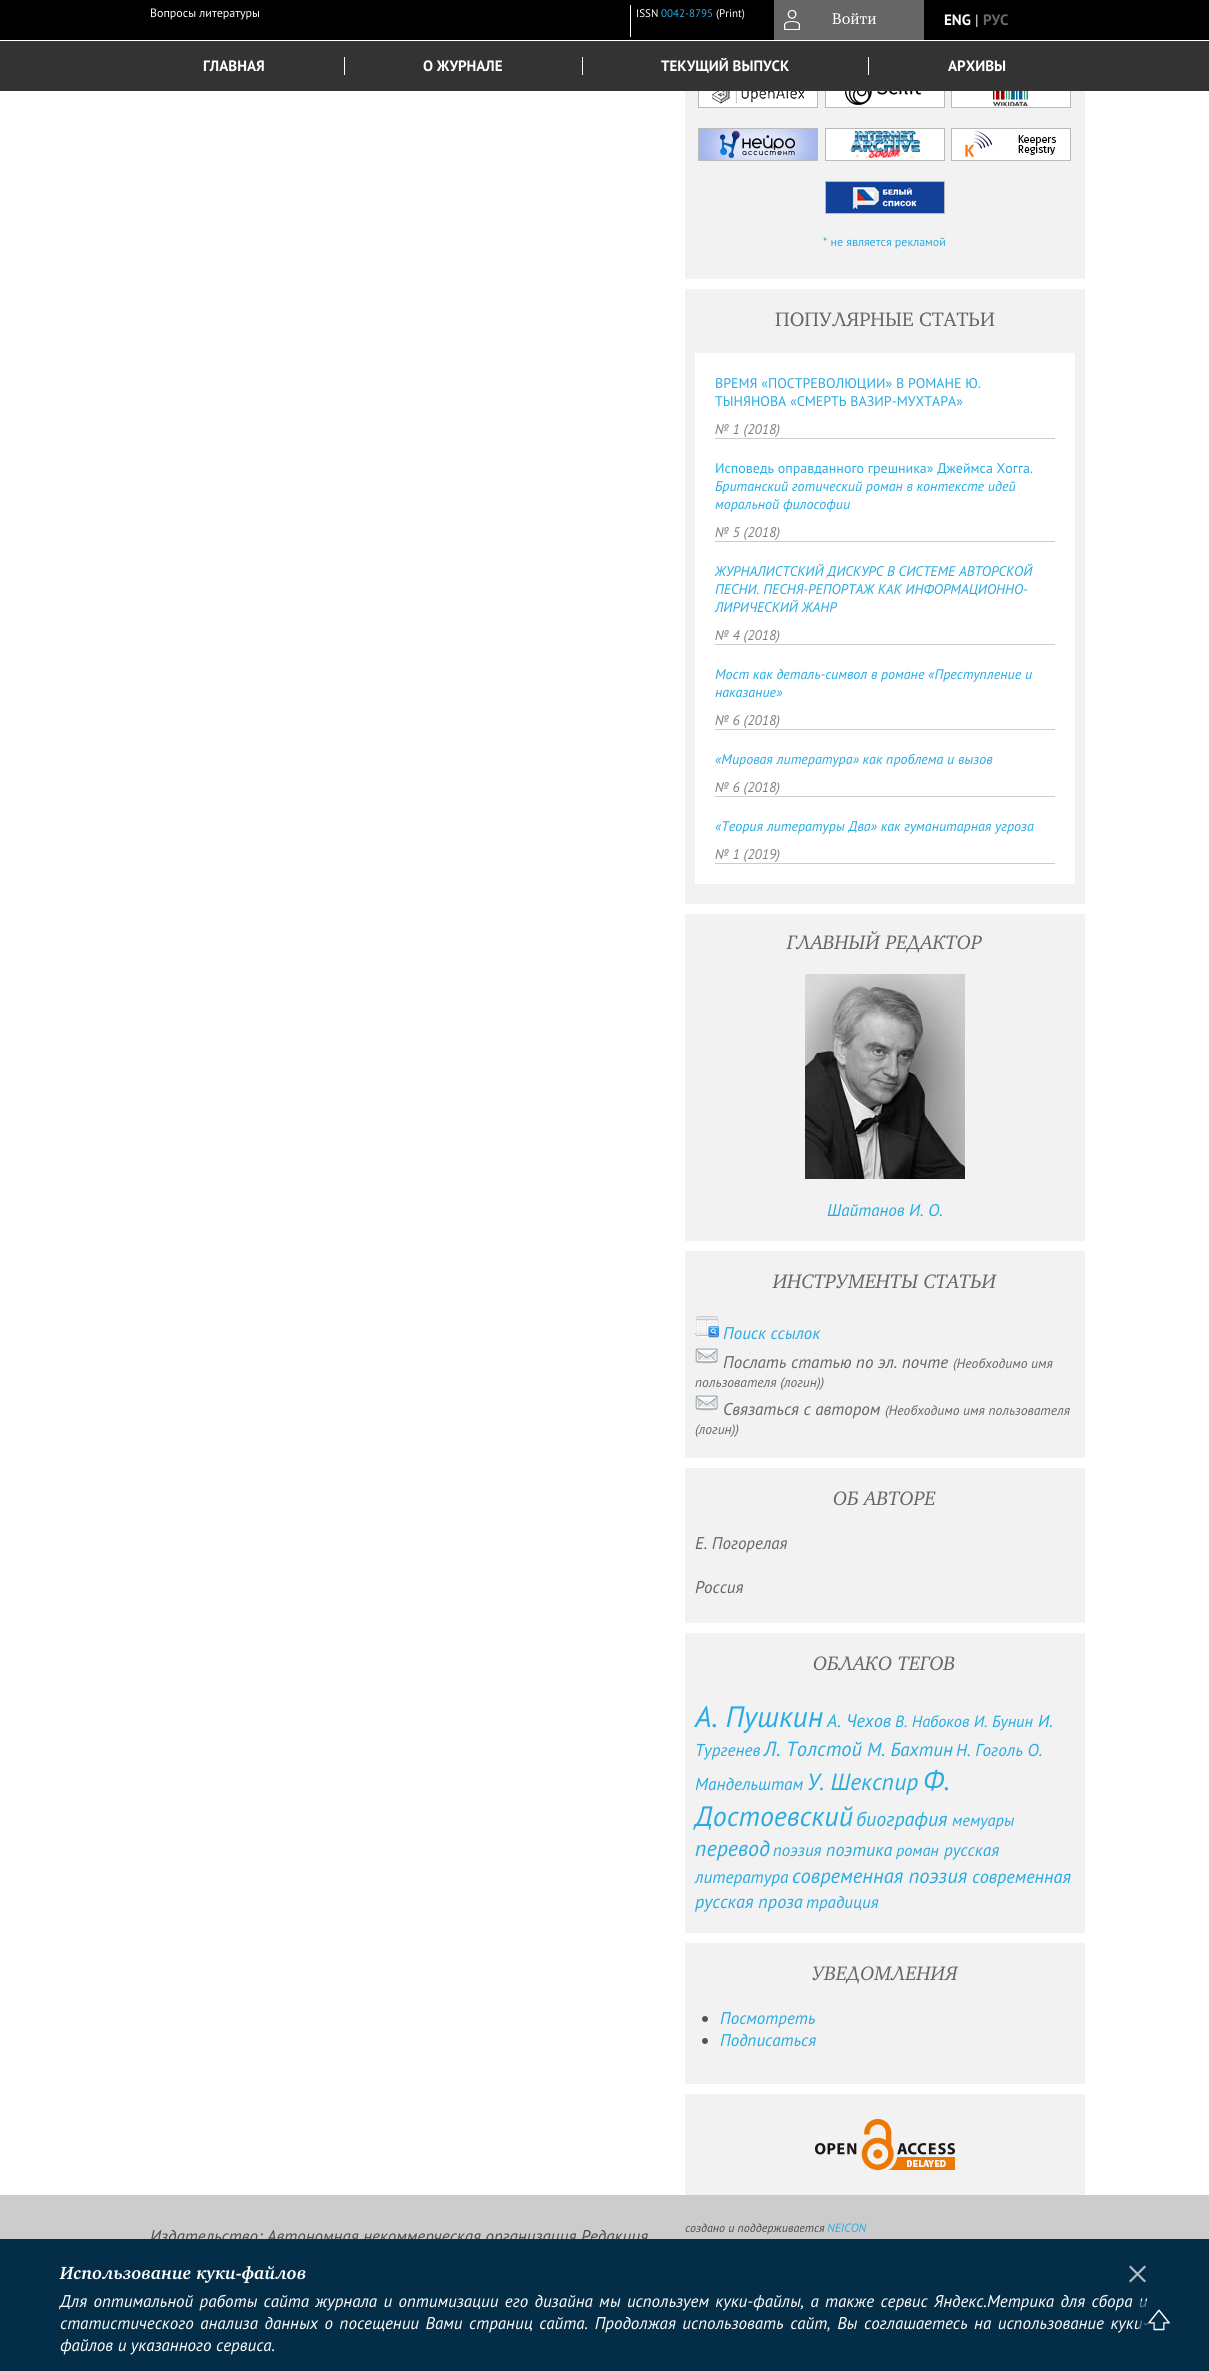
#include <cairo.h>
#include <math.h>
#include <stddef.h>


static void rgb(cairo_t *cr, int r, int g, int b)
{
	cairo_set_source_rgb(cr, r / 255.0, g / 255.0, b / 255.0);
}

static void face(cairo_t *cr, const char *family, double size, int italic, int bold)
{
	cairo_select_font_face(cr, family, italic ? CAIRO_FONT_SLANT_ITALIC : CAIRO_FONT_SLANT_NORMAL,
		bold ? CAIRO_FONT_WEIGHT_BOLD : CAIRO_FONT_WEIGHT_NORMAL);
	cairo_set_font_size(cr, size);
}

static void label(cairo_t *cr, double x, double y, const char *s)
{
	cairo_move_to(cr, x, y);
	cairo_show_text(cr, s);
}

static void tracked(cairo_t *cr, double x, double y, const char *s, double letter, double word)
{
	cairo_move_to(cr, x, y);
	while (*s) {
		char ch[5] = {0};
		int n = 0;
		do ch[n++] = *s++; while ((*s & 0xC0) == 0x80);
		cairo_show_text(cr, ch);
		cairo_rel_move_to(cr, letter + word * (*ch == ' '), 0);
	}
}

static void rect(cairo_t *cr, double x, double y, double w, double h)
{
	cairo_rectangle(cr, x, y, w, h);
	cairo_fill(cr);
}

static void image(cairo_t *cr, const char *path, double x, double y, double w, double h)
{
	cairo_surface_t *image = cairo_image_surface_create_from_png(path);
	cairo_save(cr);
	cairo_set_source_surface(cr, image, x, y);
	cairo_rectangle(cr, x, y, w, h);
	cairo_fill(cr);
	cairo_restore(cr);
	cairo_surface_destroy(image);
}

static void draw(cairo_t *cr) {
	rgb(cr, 255, 255, 255);
	cairo_paint(cr);
	rgb(cr, 0, 0, 0);
	rect(cr, 0, 0, 1209, 40);
	face(cr, "PT Sans", 12, 0, 0);
	rgb(cr, 255, 255, 255);
	label(cr, 150, 17, "Вопросы литературы");
	rect(cr, 630, 5, 1, 32);
	face(cr, "PT Sans", 11, 0, 0);
	label(cr, 636, 17, "ISSN");
	rgb(cr, 41, 171, 226);
	label(cr, 661, 17, "0042-8795");
	rgb(cr, 255, 255, 255);
	label(cr, 716, 17, "(Print)");
	rgb(cr, 102, 102, 102);
	rect(cr, 774, 0, 150, 40);
	image(cr, "image0.png", 784, 10, 16, 20);
	face(cr, "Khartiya", 16, 0, 0);
	rgb(cr, 255, 255, 255);
	label(cr, 832, 24, "Войти");
	face(cr, "PT Sans", 15, 0, 1);
	label(cr, 944, 25, "ENG");
	face(cr, "PT Sans", 15, 0, 0);
	label(cr, 975, 25, "|");
	face(cr, "PT Sans", 15, 0, 1);
	rgb(cr, 102, 102, 102);
	label(cr, 983, 25, "РУС");
	rgb(cr, 51, 51, 51);
	rect(cr, 0, 41, 1209, 50);
	rgb(cr, 255, 255, 255);
	rect(cr, 344, 57, 1, 18);
	label(cr, 203, 71, "ГЛАВНАЯ");
	rect(cr, 582, 57, 1, 18);
	label(cr, 423, 71, "О ЖУРНАЛЕ");
	rect(cr, 868, 57, 1, 18);
	label(cr, 661, 71, "ТЕКУЩИЙ ВЫПУСК");
	label(cr, 948, 71, "АРХИВЫ");
	rgb(cr, 242, 242, 242);
	rect(cr, 685, 91, 400, 188);
	image(cr, "image1.png", 698, 91, 120, 17);
	image(cr, "image2.png", 825, 91, 120, 17);
	image(cr, "image3.png", 951, 91, 120, 17);
	image(cr, "image4.png", 698, 128, 120, 33);
	image(cr, "image5.png", 825, 128, 120, 33);
	image(cr, "image6.png", 951, 128, 120, 33);
	image(cr, "image7.png", 825, 181, 120, 33);
	face(cr, "PT Sans", 12, 0, 0);
	rgb(cr, 41, 171, 226);
	label(cr, 823, 246, "* не является рекламой");
	rgb(cr, 242, 242, 242);
	rect(cr, 685, 289, 400, 615);
	face(cr, "Khartiya", 20, 0, 0);
	rgb(cr, 102, 102, 102);
	label(cr, 775, 326, "ПОПУЛЯРНЫЕ СТАТЬИ");
	rgb(cr, 255, 255, 255);
	rect(cr, 695, 353, 380, 531);
	face(cr, "PT Sans", 14, 0, 0);
	rgb(cr, 41, 171, 226);
	label(cr, 715, 388, "ВРЕМЯ «ПОСТРЕВОЛЮЦИИ» В РОМАНЕ Ю.");
	label(cr, 715, 406, "ТЫНЯНОВА «СМЕРТЬ ВАЗИР-МУХТАРА»");
	face(cr, "PT Sans", 14, 1, 0);
	rgb(cr, 128, 128, 128);
	label(cr, 715, 434, "№ 1 (2018)");
	rgb(cr, 204, 204, 204);
	rect(cr, 715, 438, 340, 1);
	face(cr, "PT Sans", 14, 0, 0);
	rgb(cr, 41, 171, 226);
	label(cr, 715, 473, "Исповедь оправданного грешника» Джеймса Хогга.");
	face(cr, "PT Sans", 14, 1, 0);
	label(cr, 715, 491, "Британский готический роман в контексте идей");
	label(cr, 715, 509, "моральной философии");
	rgb(cr, 128, 128, 128);
	label(cr, 715, 537, "№ 5 (2018)");
	rgb(cr, 204, 204, 204);
	rect(cr, 715, 541, 340, 1);
	rgb(cr, 41, 171, 226);
	label(cr, 715, 576, "ЖУРНАЛИСТСКИЙ ДИСКУРС В СИСТЕМЕ АВТОРСКОЙ");
	label(cr, 715, 594, "ПЕСНИ. ПЕСНЯ-РЕПОРТАЖ КАК ИНФОРМАЦИОННО-");
	label(cr, 715, 612, "ЛИРИЧЕСКИЙ ЖАНР");
	rgb(cr, 128, 128, 128);
	label(cr, 715, 640, "№ 4 (2018)");
	rgb(cr, 204, 204, 204);
	rect(cr, 715, 644, 340, 1);
	rgb(cr, 41, 171, 226);
	label(cr, 715, 679, "Мост как деталь-символ в романе «Преступление и");
	label(cr, 715, 697, "наказание»");
	rgb(cr, 128, 128, 128);
	label(cr, 715, 725, "№ 6 (2018)");
	rgb(cr, 204, 204, 204);
	rect(cr, 715, 729, 340, 1);
	rgb(cr, 41, 171, 226);
	label(cr, 715, 764, "«Мировая литература» как проблема и вызов");
	rgb(cr, 128, 128, 128);
	label(cr, 715, 792, "№ 6 (2018)");
	rgb(cr, 204, 204, 204);
	rect(cr, 715, 796, 340, 1);
	rgb(cr, 41, 171, 226);
	label(cr, 715, 831, "«Теория литературы Два» как гуманитарная угроза");
	rgb(cr, 128, 128, 128);
	label(cr, 715, 859, "№ 1 (2019)");
	rgb(cr, 204, 204, 204);
	rect(cr, 715, 863, 340, 1);
	rgb(cr, 242, 242, 242);
	rect(cr, 685, 914, 400, 327);
	face(cr, "Khartiya Medium", 20, 1, 0);
	rgb(cr, 102, 102, 102);
	label(cr, 787, 949, "ГЛАВНЫЙ РЕДАКТОР");
	image(cr, "image8.png", 805, 974, 160, 205);
	face(cr, "PT Sans", 17, 1, 0);
	rgb(cr, 41, 171, 226);
	label(cr, 827, 1216, "Шайтанов И. О.");
	rgb(cr, 242, 242, 242);
	rect(cr, 685, 1251, 400, 207);
	face(cr, "Khartiya Medium", 20, 1, 0);
	rgb(cr, 102, 102, 102);
	label(cr, 773, 1288, "ИНСТРУМЕНТЫ СТАТЬИ");
	image(cr, "image9.png", 695, 1316, 24, 22);
	face(cr, "PT Sans", 17, 1, 0);
	rgb(cr, 41, 171, 226);
	label(cr, 723, 1339, "Поиск ссылок");
	image(cr, "image10.png", 695, 1348, 23, 16);
	rgb(cr, 102, 102, 102);
	label(cr, 723, 1368, "Послать статью по эл. почте");
	face(cr, "PT Sans", 13.6, 1, 0);
	label(cr, 953, 1368, "(Необходимо имя");
	label(cr, 695, 1387, "пользователя (логин))");
	image(cr, "image10.png", 695, 1395, 23, 16);
	face(cr, "PT Sans", 17, 1, 0);
	label(cr, 723, 1415, "Связаться с автором");
	face(cr, "PT Sans", 13.6, 1, 0);
	label(cr, 885, 1415, "(Необходимо имя пользователя");
	label(cr, 695, 1434, "(логин))");
	rgb(cr, 242, 242, 242);
	rect(cr, 685, 1468, 400, 155);
	face(cr, "Khartiya Medium", 20, 1, 0);
	rgb(cr, 102, 102, 102);
	label(cr, 833, 1505, "ОБ АВТОРЕ");
	face(cr, "PT Sans", 17, 1, 0);
	label(cr, 695, 1549, "Е. Погорелая");
	label(cr, 695, 1593, "Россия");
	rgb(cr, 242, 242, 242);
	rect(cr, 685, 1633, 400, 300);
	face(cr, "Khartiya Medium", 20, 1, 0);
	rgb(cr, 102, 102, 102);
	label(cr, 813, 1670, "ОБЛАКО ТЕГОВ");
	face(cr, "PT Sans", 29.5, 1, 0);
	rgb(cr, 41, 171, 226);
	label(cr, 695, 1727, "А. Пушкин");
	face(cr, "PT Sans", 18.25, 1, 0);
	label(cr, 827, 1727, "А. Чехов");
	face(cr, "PT Sans", 16.25, 1, 0);
	label(cr, 895, 1727, "В. Набоков И. Бунин");
	face(cr, "PT Sans", 17.25, 1, 0);
	label(cr, 1038, 1727, "И.");
	label(cr, 695, 1756, "Тургенев");
	face(cr, "PT Sans", 20.5, 1, 0);
	label(cr, 764, 1756, "Л. Толстой");
	face(cr, "PT Sans", 19, 1, 0);
	label(cr, 867, 1756, "М. Бахтин");
	face(cr, "PT Sans", 17.25, 1, 0);
	label(cr, 956, 1756, "Н. Гоголь О.");
	label(cr, 695, 1790, "Мандельштам");
	face(cr, "PT Sans", 23.5, 1, 0);
	label(cr, 807, 1790, "У. Шекспир");
	face(cr, "PT Sans", 28, 1, 0);
	label(cr, 923, 1790, "Ф.");
	label(cr, 695, 1826, "Достоевский");
	face(cr, "PT Sans", 20, 1, 0);
	label(cr, 856, 1826, "биография");
	face(cr, "PT Sans", 16.5, 1, 0);
	label(cr, 952, 1826, "мемуары");
	face(cr, "PT Sans", 22, 1, 0);
	label(cr, 695, 1856, "перевод");
	face(cr, "PT Sans", 17, 1, 0);
	label(cr, 773, 1856, "поэзия");
	face(cr, "PT Sans", 18, 1, 0);
	label(cr, 826, 1856, "поэтика");
	face(cr, "PT Sans", 16.25, 1, 0);
	label(cr, 896, 1856, "роман");
	face(cr, "PT Sans", 17.25, 1, 0);
	label(cr, 944, 1856, "русская");
	label(cr, 695, 1883, "литература");
	face(cr, "PT Sans", 20.5, 1, 0);
	label(cr, 792, 1883, "современная поэзия");
	face(cr, "PT Sans", 18.25, 1, 0);
	label(cr, 972, 1883, "современная");
	label(cr, 695, 1908, "русская проза");
	face(cr, "PT Sans", 17, 1, 0);
	label(cr, 806, 1908, "традиция");
	rgb(cr, 242, 242, 242);
	rect(cr, 685, 1943, 400, 141);
	face(cr, "Khartiya Medium", 20, 1, 0);
	rgb(cr, 102, 102, 102);
	label(cr, 812, 1980, "УВЕДОМЛЕНИЯ");
	rgb(cr, 85, 85, 85);
	cairo_new_path(cr);
	cairo_arc(cr, 705, 2019, 3, 0, 2 * M_PI);
	cairo_fill(cr);
	face(cr, "PT Sans", 17, 1, 0);
	rgb(cr, 41, 171, 226);
	label(cr, 720, 2024, "Посмотреть");
	rgb(cr, 85, 85, 85);
	cairo_new_path(cr);
	cairo_arc(cr, 705, 2041, 3, 0, 2 * M_PI);
	cairo_fill(cr);
	rgb(cr, 41, 171, 226);
	label(cr, 720, 2046, "Подписаться");
	rgb(cr, 242, 242, 242);
	rect(cr, 685, 2094, 400, 101);
	image(cr, "image11.png", 815, 2119, 140, 51);
	rgb(cr, 204, 204, 204);
	rect(cr, 0, 2195, 1209, 44);
	rgb(cr, 77, 77, 77);
	label(cr, 150, 2242, "Издательство: Автономная некоммерческая организация Редакция");
	face(cr, "PT Sans", 12, 1, 0);
	label(cr, 685, 2232, "создано и поддерживается");
	rgb(cr, 41, 171, 226);
	label(cr, 827, 2232, "NEICON");
	rgb(cr, 4, 46, 71);
	rect(cr, 0, 2239, 1209, 132);
	face(cr, "PT Sans", 17, 1, 0);
	rgb(cr, 255, 255, 255);
	tracked(cr, 60, 2307, "Для оптимальной работы сайта журнала и оптимизации его дизайна мы используем куки-файлы, а также сервис Яндекс.Метрика для сбора и", 0, 1.8);
	tracked(cr, 60, 2329, "статистического анализа данных о посещении Вами страниц сайта. Продолжая использовать сайт, Вы соглашаетесь на использование куки-", 0, 2);
	image(cr, "image12.png", 1139, 2301, 31, 30);
	face(cr, "Khartiya", 18, 1, 1);
	label(cr, 60, 2279, "Использование куки-файлов");
	rgb(cr, 180, 192, 200);
	cairo_new_path(cr);
	cairo_move_to(cr, 1144.5, 2265.5);
	cairo_line_to(cr, 1146, 2267);
	cairo_line_to(cr, 1130.5, 2282.5);
	cairo_line_to(cr, 1129, 2281);
	cairo_close_path(cr);
	cairo_fill(cr);
	cairo_new_path(cr);
	cairo_move_to(cr, 1129, 2267);
	cairo_line_to(cr, 1130.5, 2265.5);
	cairo_line_to(cr, 1146, 2281);
	cairo_line_to(cr, 1144.5, 2282.5);
	cairo_close_path(cr);
	cairo_fill(cr);
	face(cr, "PT Sans", 17, 1, 0);
	rgb(cr, 255, 255, 255);
	label(cr, 60, 2351, "файлов и указанного сервиса.");
}

int main(void) {
	cairo_surface_t *surface = cairo_image_surface_create(CAIRO_FORMAT_RGB24, 1209, 2371);
	cairo_t *cr = cairo_create(surface);
	cairo_font_options_t *options = cairo_font_options_create();
	cairo_font_options_set_hint_metrics(options, CAIRO_HINT_METRICS_OFF);
	cairo_font_options_set_hint_style(options, CAIRO_HINT_STYLE_NONE);
	cairo_set_font_options(cr, options);
	cairo_set_miter_limit(cr, 4);
	draw(cr);
	cairo_surface_write_to_png(surface, "render.png");
	cairo_font_options_destroy(options);
	cairo_destroy(cr);
	cairo_surface_destroy(surface);
	return 0;
}
